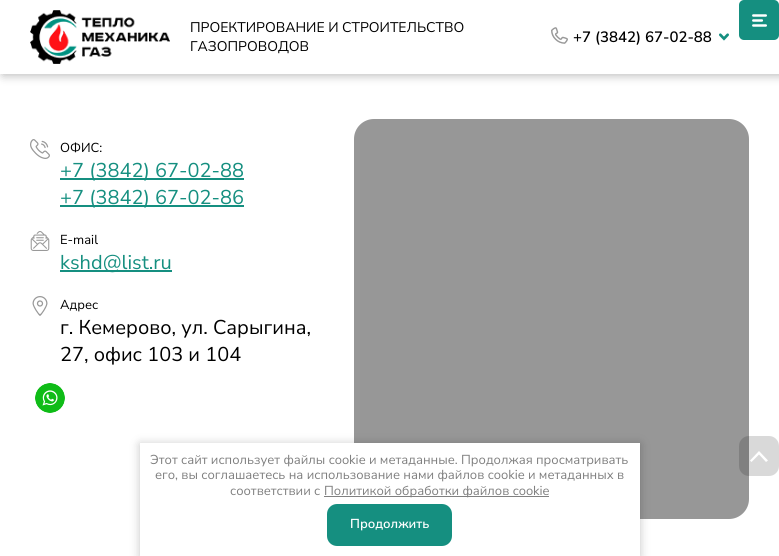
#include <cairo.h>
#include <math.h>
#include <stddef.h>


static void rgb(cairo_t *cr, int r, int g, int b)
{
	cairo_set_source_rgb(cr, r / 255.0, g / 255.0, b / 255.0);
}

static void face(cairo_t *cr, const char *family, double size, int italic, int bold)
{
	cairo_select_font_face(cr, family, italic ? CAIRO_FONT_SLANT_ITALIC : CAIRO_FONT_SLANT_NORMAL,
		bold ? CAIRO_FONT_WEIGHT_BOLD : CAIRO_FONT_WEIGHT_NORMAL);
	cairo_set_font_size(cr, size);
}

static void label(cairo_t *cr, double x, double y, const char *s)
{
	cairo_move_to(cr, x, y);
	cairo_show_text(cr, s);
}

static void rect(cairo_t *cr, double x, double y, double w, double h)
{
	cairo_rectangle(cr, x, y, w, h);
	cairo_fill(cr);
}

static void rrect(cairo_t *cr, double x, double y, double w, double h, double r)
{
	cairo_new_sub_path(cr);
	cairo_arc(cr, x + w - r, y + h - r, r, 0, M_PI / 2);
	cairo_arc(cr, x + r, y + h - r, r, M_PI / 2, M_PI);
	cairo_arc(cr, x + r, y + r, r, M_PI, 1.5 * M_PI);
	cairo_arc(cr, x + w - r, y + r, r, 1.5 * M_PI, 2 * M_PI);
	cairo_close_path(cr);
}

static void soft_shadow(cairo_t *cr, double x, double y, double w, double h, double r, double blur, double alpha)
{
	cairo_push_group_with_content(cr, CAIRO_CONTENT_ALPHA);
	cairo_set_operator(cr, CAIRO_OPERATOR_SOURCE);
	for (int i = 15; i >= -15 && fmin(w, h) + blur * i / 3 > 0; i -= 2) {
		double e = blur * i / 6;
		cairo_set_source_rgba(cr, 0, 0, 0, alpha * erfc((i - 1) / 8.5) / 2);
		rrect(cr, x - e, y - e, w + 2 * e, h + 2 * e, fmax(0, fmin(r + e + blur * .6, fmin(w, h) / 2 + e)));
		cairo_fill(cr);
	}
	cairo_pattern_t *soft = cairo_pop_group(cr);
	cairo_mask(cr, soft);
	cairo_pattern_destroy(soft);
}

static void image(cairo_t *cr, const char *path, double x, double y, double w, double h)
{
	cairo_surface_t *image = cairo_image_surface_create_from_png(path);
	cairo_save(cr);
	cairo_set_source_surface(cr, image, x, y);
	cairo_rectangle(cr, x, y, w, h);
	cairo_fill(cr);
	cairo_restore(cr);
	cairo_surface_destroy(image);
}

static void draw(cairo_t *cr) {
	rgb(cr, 255, 255, 255);
	cairo_paint(cr);
	rgb(cr, 0, 0, 0);
	soft_shadow(cr, 3, 1, 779, 74, 0, 5, 0.3);
	rgb(cr, 255, 255, 255);
	rect(cr, 0, 0, 779, 74);
	image(cr, "image0.png", 30, 10, 140, 54);
	face(cr, "Nunito Sans ExtraLight", 14, 0, 0);
	rgb(cr, 0, 0, 0);
	label(cr, 190, 32, "ПРОЕКТИРОВАНИЕ И СТРОИТЕЛЬСТВО");
	label(cr, 190, 51, "ГАЗОПРОВОДОВ");
	image(cr, "image1.png", 551, 27, 17, 17);
	face(cr, "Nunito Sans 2 ExtraLight", 15, 0, 0);
	label(cr, 573, 42, "+7 (3842) 67-02-88");
	image(cr, "image2.png", 719, 33, 10, 8);
	rgb(cr, 21, 143, 128);
	rrect(cr, 739, 0, 40, 40, 5);
	cairo_fill(cr);
	image(cr, "image3.png", 752, 14, 15, 13);
	image(cr, "image4.png", 30, 139, 20, 20);
	face(cr, "Nunito Sans ExtraLight", 13, 0, 0);
	rgb(cr, 0, 0, 0);
	label(cr, 60, 152, "ОФИС:");
	rgb(cr, 21, 143, 128);
	rect(cr, 60, 178, 184, 2);
	face(cr, "Nunito Sans ExtraLight", 20, 0, 0);
	label(cr, 60, 177, "+7 (3842) 67-02-88");
	rect(cr, 60, 205, 184, 2);
	label(cr, 60, 204, "+7 (3842) 67-02-86");
	image(cr, "image5.png", 30, 231, 20, 20);
	face(cr, "Nunito Sans ExtraLight", 13, 0, 0);
	rgb(cr, 0, 0, 0);
	label(cr, 60, 244, "E-mail");
	rgb(cr, 21, 143, 128);
	rect(cr, 60, 270, 112, 2);
	face(cr, "Nunito Sans ExtraLight", 20, 0, 0);
	label(cr, 60, 269, "kshd@list.ru");
	image(cr, "image6.png", 32, 296, 16, 20);
	face(cr, "Nunito Sans ExtraLight", 13, 0, 0);
	rgb(cr, 0, 0, 0);
	label(cr, 60, 309, "Адрес");
	face(cr, "Nunito Sans ExtraLight", 20, 0, 0);
	label(cr, 60, 334, "г. Кемерово, ул. Сарыгина,");
	label(cr, 60, 361, "27, офис 103 и 104");
	image(cr, "image7.png", 35, 383, 30, 30);
	rgb(cr, 151, 151, 151);
	rrect(cr, 354, 119, 395, 400, 20);
	cairo_fill(cr);
	cairo_set_source_rgba(cr, 0, 0, 0, 0.15);
	rrect(cr, 739, 436, 40, 40, 10);
	cairo_fill(cr);
	rgb(cr, 255, 255, 255);
	cairo_set_fill_rule(cr, CAIRO_FILL_RULE_EVEN_ODD);
	cairo_new_path(cr);
	cairo_move_to(cr, 750, 460.5);
	cairo_line_to(cr, 759, 451);
	cairo_line_to(cr, 768, 460.5);
	cairo_line_to(cr, 766, 462);
	cairo_line_to(cr, 759, 454.5);
	cairo_line_to(cr, 751.5, 462);
	cairo_close_path(cr);
	cairo_fill(cr);
	rgb(cr, 0, 0, 0);
	soft_shadow(cr, 140, 444, 500, 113, 0, 5, 0.23);
	rgb(cr, 255, 255, 255);
	rect(cr, 140, 443, 500, 113);
	face(cr, "Nunito Sans ExtraLight", 13, 0, 0);
	rgb(cr, 128, 128, 128);
	label(cr, 150, 464, "Этот сайт использует файлы cookie и метаданные. Продолжая просматривать");
	label(cr, 155, 479, "его, вы соглашаетесь на использование нами файлов cookie и метаданных в");
	label(cr, 230, 495, "соответствии с");
	rect(cr, 324, 496, 225, 1);
	label(cr, 324, 495, "Политикой обработки файлов cookie");
	rgb(cr, 21, 143, 128);
	rrect(cr, 327, 504, 125, 42, 10);
	cairo_fill(cr);
	face(cr, "Nunito Sans 2 ExtraLight", 13, 0, 0);
	rgb(cr, 255, 255, 255);
	label(cr, 350, 528, "Продолжить");
}

int main(void) {
	cairo_surface_t *surface = cairo_image_surface_create(CAIRO_FORMAT_RGB24, 779, 556);
	cairo_t *cr = cairo_create(surface);
	cairo_font_options_t *options = cairo_font_options_create();
	cairo_font_options_set_hint_metrics(options, CAIRO_HINT_METRICS_OFF);
	cairo_font_options_set_hint_style(options, CAIRO_HINT_STYLE_NONE);
	cairo_set_font_options(cr, options);
	cairo_set_miter_limit(cr, 4);
	draw(cr);
	cairo_surface_write_to_png(surface, "render.png");
	cairo_font_options_destroy(options);
	cairo_destroy(cr);
	cairo_surface_destroy(surface);
	return 0;
}
